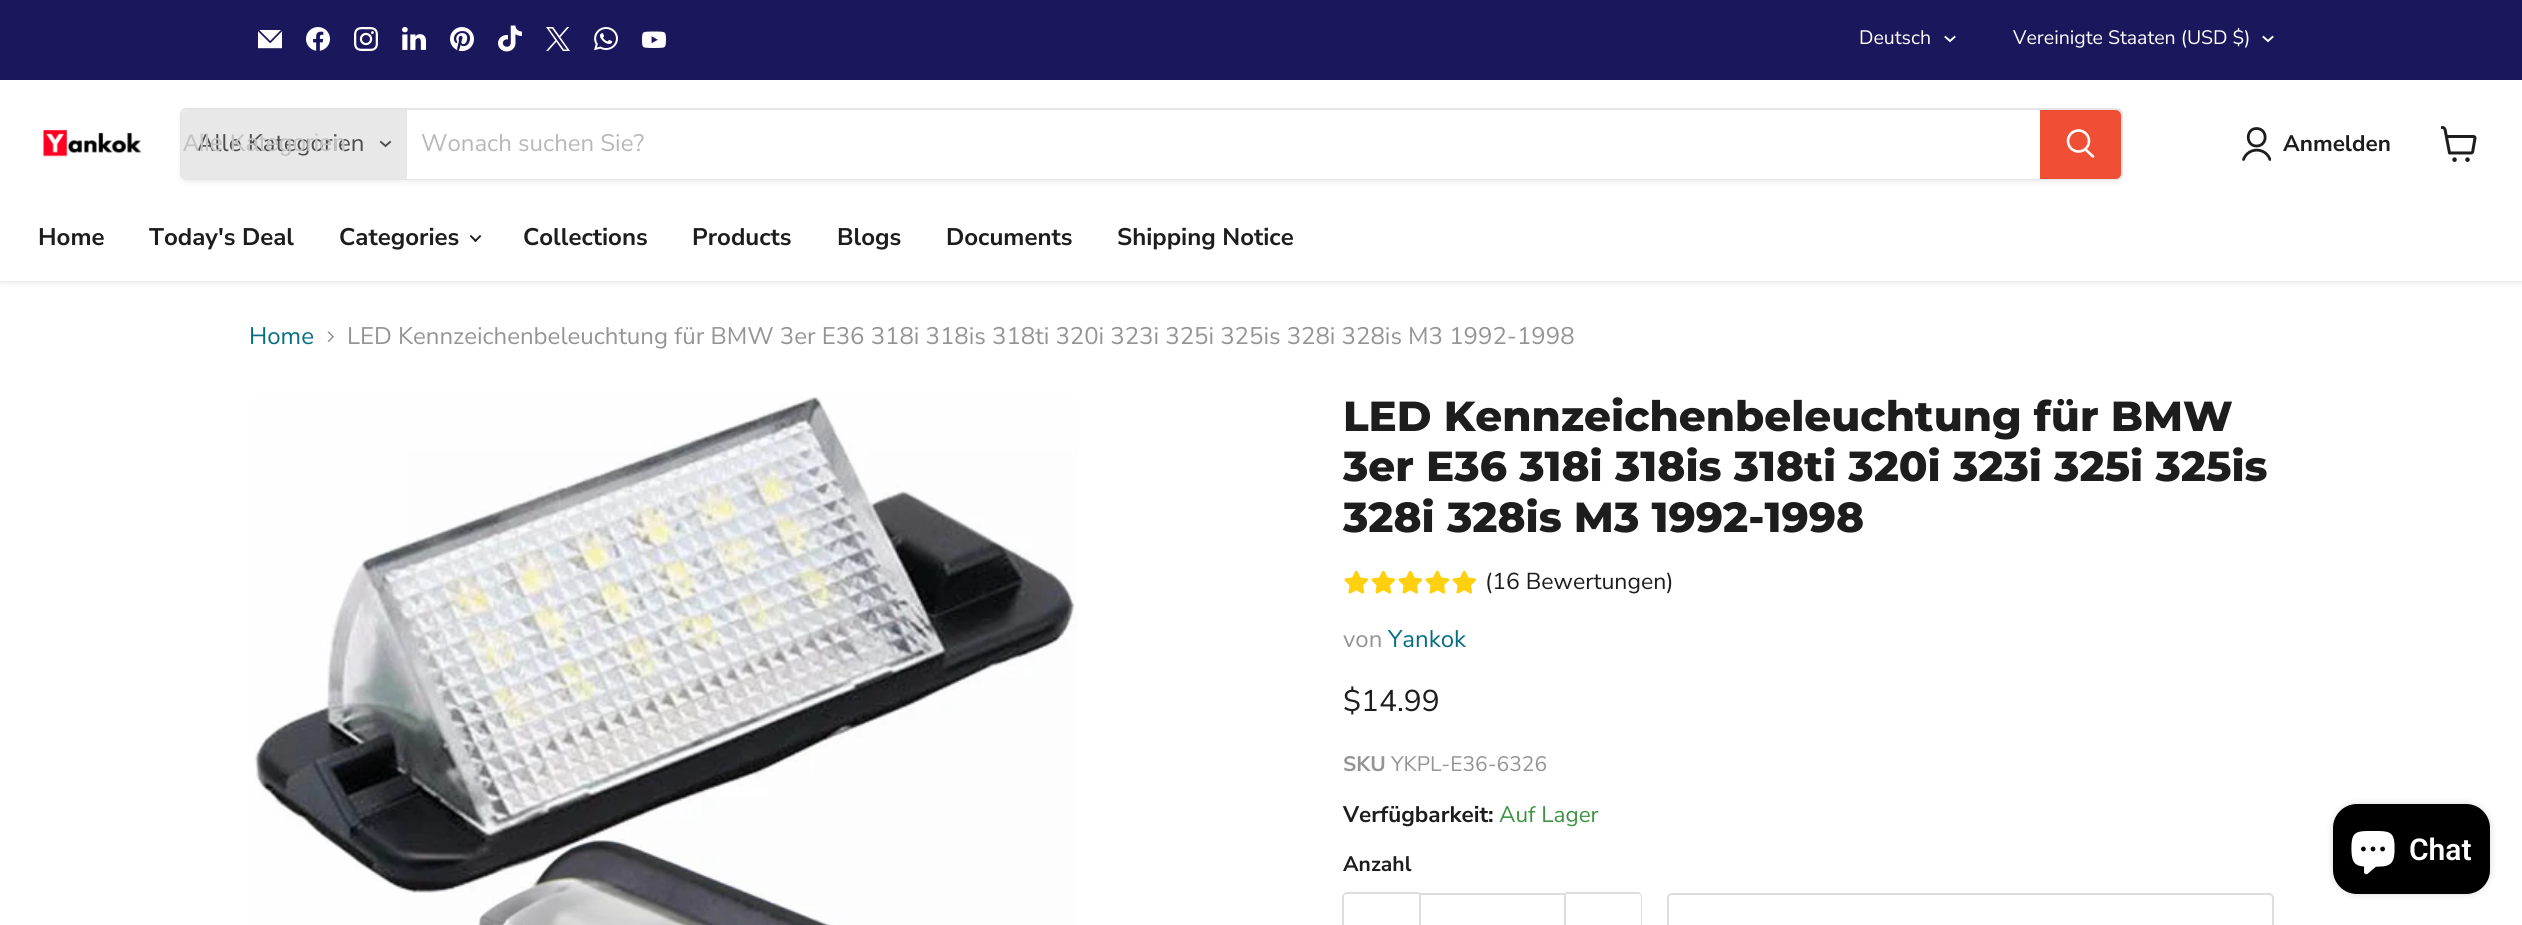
#include <cairo.h>
#include <math.h>
#include <stddef.h>


static void rgb(cairo_t *cr, int r, int g, int b)
{
	cairo_set_source_rgb(cr, r / 255.0, g / 255.0, b / 255.0);
}

static void face(cairo_t *cr, const char *family, double size, int italic, int bold)
{
	cairo_select_font_face(cr, family, italic ? CAIRO_FONT_SLANT_ITALIC : CAIRO_FONT_SLANT_NORMAL,
		bold ? CAIRO_FONT_WEIGHT_BOLD : CAIRO_FONT_WEIGHT_NORMAL);
	cairo_set_font_size(cr, size);
}

static void label(cairo_t *cr, double x, double y, const char *s)
{
	cairo_move_to(cr, x, y);
	cairo_show_text(cr, s);
}

static void rect(cairo_t *cr, double x, double y, double w, double h)
{
	cairo_rectangle(cr, x, y, w, h);
	cairo_fill(cr);
}

static void rrect(cairo_t *cr, double x, double y, double w, double h, double r)
{
	cairo_new_sub_path(cr);
	cairo_arc(cr, x + w - r, y + h - r, r, 0, M_PI / 2);
	cairo_arc(cr, x + r, y + h - r, r, M_PI / 2, M_PI);
	cairo_arc(cr, x + r, y + r, r, M_PI, 1.5 * M_PI);
	cairo_arc(cr, x + w - r, y + r, r, 1.5 * M_PI, 2 * M_PI);
	cairo_close_path(cr);
}

static void soft_shadow(cairo_t *cr, double x, double y, double w, double h, double r, double blur, double alpha)
{
	cairo_push_group_with_content(cr, CAIRO_CONTENT_ALPHA);
	cairo_set_operator(cr, CAIRO_OPERATOR_SOURCE);
	for (int i = 15; i >= -15 && fmin(w, h) + blur * i / 3 > 0; i -= 2) {
		double e = blur * i / 6;
		cairo_set_source_rgba(cr, 0, 0, 0, alpha * erfc((i - 1) / 8.5) / 2);
		rrect(cr, x - e, y - e, w + 2 * e, h + 2 * e, fmax(0, fmin(r + e + blur * .6, fmin(w, h) / 2 + e)));
		cairo_fill(cr);
	}
	cairo_pattern_t *soft = cairo_pop_group(cr);
	cairo_mask(cr, soft);
	cairo_pattern_destroy(soft);
}

static void image(cairo_t *cr, const char *path, double x, double y, double w, double h)
{
	cairo_surface_t *image = cairo_image_surface_create_from_png(path);
	cairo_save(cr);
	cairo_set_source_surface(cr, image, x, y);
	cairo_rectangle(cr, x, y, w, h);
	cairo_fill(cr);
	cairo_restore(cr);
	cairo_surface_destroy(image);
}

static void draw(cairo_t *cr) {
	rgb(cr, 255, 255, 255);
	cairo_paint(cr);
	rgb(cr, 128, 128, 128);
	soft_shadow(cr, 0, 81, 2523, 201, 0, 3, 0.25);
	rgb(cr, 27, 23, 93);
	rect(cr, 0, 0, 2522, 80);
	image(cr, "image0.png", 258, 30, 24, 19);
	image(cr, "image1.png", 306, 27, 24, 24);
	image(cr, "image2.png", 354, 27, 24, 24);
	image(cr, "image3.png", 402, 27, 24, 23);
	image(cr, "image4.png", 450, 27, 24, 25);
	image(cr, "image5.png", 498, 25, 24, 27);
	image(cr, "image6.png", 546, 27, 24, 24);
	image(cr, "image7.png", 594, 27, 24, 24);
	image(cr, "image8.png", 642, 31, 24, 17);
	face(cr, "Nunito Sans", 19.5, 0, 0);
	rgb(cr, 255, 255, 255);
	label(cr, 1859, 44, "Deutsch");
	cairo_new_path(cr);
	cairo_move_to(cr, 1950, 41);
	cairo_line_to(cr, 1954.5, 37);
	cairo_move_to(cr, 1950, 41);
	cairo_line_to(cr, 1945.5, 37);
	cairo_set_line_width(cr, 1.9);
	cairo_set_line_cap(cr, CAIRO_LINE_CAP_SQUARE);
	cairo_stroke(cr);
	label(cr, 2013, 44, "Vereinigte Staaten (USD $)");
	cairo_new_path(cr);
	cairo_move_to(cr, 2268, 41);
	cairo_line_to(cr, 2272.5, 37);
	cairo_move_to(cr, 2268, 41);
	cairo_line_to(cr, 2263.5, 37);
	cairo_stroke(cr);
	rect(cr, 0, 80, 2522, 201);
	image(cr, "image9.png", 42, 129, 100, 28);
	cairo_save(cr);
	cairo_set_fill_rule(cr, CAIRO_FILL_RULE_EVEN_ODD);
	cairo_new_path(cr);
	cairo_move_to(cr, 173, 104);
	cairo_line_to(cr, 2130, 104);
	cairo_line_to(cr, 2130, 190);
	cairo_line_to(cr, 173, 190);
	cairo_close_path(cr);
	cairo_move_to(cr, 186, 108);
	cairo_line_to(cr, 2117, 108);
	cairo_curve_to(cr, 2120.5, 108, 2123, 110.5, 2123, 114);
	cairo_line_to(cr, 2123, 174);
	cairo_curve_to(cr, 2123, 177.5, 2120.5, 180, 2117, 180);
	cairo_line_to(cr, 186, 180);
	cairo_curve_to(cr, 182.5, 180, 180, 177.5, 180, 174);
	cairo_line_to(cr, 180, 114);
	cairo_curve_to(cr, 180, 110.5, 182.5, 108, 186, 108);
	cairo_close_path(cr);
	cairo_clip(cr);
	rgb(cr, 128, 128, 128);
	soft_shadow(cr, 180, 111, 1943, 72, 6, 2, 0.11);
	cairo_restore(cr);
	rrect(cr, 181, 109, 1941, 70, 5);
	cairo_set_source_rgba(cr, 0.502, 0.502, 0.502, 0.2);
	cairo_set_line_width(cr, 2);
	cairo_set_line_cap(cr, CAIRO_LINE_CAP_BUTT);
	cairo_stroke(cr);
	rgb(cr, 232, 232, 232);
	cairo_new_path(cr);
	cairo_move_to(cr, 187, 110);
	cairo_line_to(cr, 407, 110);
	cairo_line_to(cr, 407, 179);
	cairo_line_to(cr, 187, 179);
	cairo_curve_to(cr, 184, 179, 182, 177, 182, 174);
	cairo_line_to(cr, 182, 115);
	cairo_curve_to(cr, 182, 112, 184, 110, 187, 110);
	cairo_close_path(cr);
	cairo_fill(cr);
	face(cr, "Nunito Sans", 24, 0, 0);
	rgb(cr, 77, 77, 77);
	label(cr, 197, 151, "Alle Kategorien");
	face(cr, "Liberation Sans", 24, 0, 0);
	rgb(cr, 195, 195, 195);
	label(cr, 183, 151, "Alle Kategorien");
	cairo_new_path(cr);
	cairo_move_to(cr, 385.5, 146);
	cairo_line_to(cr, 390, 142);
	cairo_move_to(cr, 385.5, 146);
	cairo_line_to(cr, 381, 142);
	rgb(cr, 77, 77, 77);
	cairo_set_line_width(cr, 1.9);
	cairo_set_line_cap(cr, CAIRO_LINE_CAP_SQUARE);
	cairo_stroke(cr);
	rgb(cr, 255, 255, 255);
	rect(cr, 407, 178, 1633, 1);
	face(cr, "Nunito Sans", 24, 0, 0);
	rgb(cr, 184, 184, 184);
	label(cr, 421, 151, "Wonach suchen Sie?");
	rgb(cr, 240, 79, 54);
	cairo_new_path(cr);
	cairo_move_to(cr, 2041, 111);
	cairo_line_to(cr, 2116, 111);
	cairo_curve_to(cr, 2118, 111, 2120, 113, 2120, 115);
	cairo_line_to(cr, 2120, 174);
	cairo_curve_to(cr, 2120, 176, 2118, 178, 2116, 178);
	cairo_line_to(cr, 2041, 178);
	cairo_close_path(cr);
	cairo_fill_preserve(cr);
	cairo_set_line_width(cr, 2);
	cairo_set_line_cap(cr, CAIRO_LINE_CAP_BUTT);
	cairo_stroke(cr);
	cairo_new_path(cr);
	cairo_move_to(cr, 2093, 156.5);
	cairo_line_to(cr, 2085.5, 149.5);
	rgb(cr, 255, 255, 255);
	cairo_set_line_width(cr, 2.6);
	cairo_set_line_cap(cr, CAIRO_LINE_CAP_ROUND);
	cairo_stroke(cr);
	cairo_arc(cr, 2078.5, 141, 10.5, 0, 2 * M_PI);
	cairo_set_line_cap(cr, CAIRO_LINE_CAP_BUTT);
	cairo_stroke(cr);
	cairo_new_path(cr);
	cairo_move_to(cr, 2256.5, 146);
	cairo_curve_to(cr, 2268, 146, 2268, 128.5, 2256.5, 128.5);
	cairo_curve_to(cr, 2245.5, 128.5, 2245.5, 146, 2256.5, 146);
	cairo_close_path(cr);
	rgb(cr, 29, 29, 29);
	cairo_set_line_width(cr, 2.8);
	cairo_set_line_cap(cr, CAIRO_LINE_CAP_ROUND);
	cairo_set_line_join(cr, CAIRO_LINE_JOIN_ROUND);
	cairo_stroke(cr);
	cairo_save(cr);
	cairo_rectangle(cr, 2241, 126, 30, 36);
	cairo_clip(cr);
	cairo_new_path(cr);
	cairo_move_to(cr, 2270, 159.5);
	cairo_curve_to(cr, 2265.5, 147, 2248, 147, 2243.5, 159.5);
	cairo_stroke(cr);
	cairo_restore(cr);
	face(cr, "Nunito Sans", 22.5, 0, 1);
	label(cr, 2283, 151, "Anmelden");
	image(cr, "image10.png", 2441, 126, 36, 36);
	face(cr, "Nunito Sans", 24, 0, 1);
	label(cr, 38, 245, "Home");
	label(cr, 149, 245, "Today's Deal");
	label(cr, 339, 245, "Categories");
	image(cr, "image11.png", 470, 235, 12, 7);
	label(cr, 523, 245, "Collections");
	label(cr, 692, 245, "Products");
	label(cr, 837, 245, "Blogs");
	label(cr, 946, 245, "Documents");
	label(cr, 1117, 245, "Shipping Notice");
	face(cr, "Nunito Sans", 24, 0, 0);
	rgb(cr, 4, 110, 130);
	label(cr, 249, 344, "Home");
	image(cr, "image12.png", 327, 331, 7, 11);
	rgb(cr, 148, 148, 148);
	label(cr, 347, 344, "LED Kennzeichenbeleuchtung für BMW 3er E36 318i 318is 318ti 320i 323i 325i 325is 328i 328is M3 1992-1998");
	image(cr, "image13.png", 254, 397, 823, 528);
	face(cr, "Montserrat ExtraBold", 42, 0, 0);
	rgb(cr, 29, 29, 29);
	label(cr, 1343, 431, "LED Kennzeichenbeleuchtung für BMW");
	label(cr, 1343, 481, "3er E36 318i 318is 318ti 320i 323i 325i 325is");
	label(cr, 1343, 532, "328i 328is M3 1992-1998");
	face(cr, "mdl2", 26, 0, 0);
	rgb(cr, 255, 208, 13);
	label(cr, 1343, 595, "£");
	label(cr, 1370, 595, "£");
	label(cr, 1397, 595, "£");
	label(cr, 1424, 595, "£");
	label(cr, 1451, 595, "£");
	face(cr, "Nunito Sans", 23, 0, 0);
	rgb(cr, 29, 29, 29);
	label(cr, 1485, 589, "(16 Bewertungen)");
	face(cr, "Nunito Sans", 24, 0, 0);
	rgb(cr, 148, 148, 148);
	label(cr, 1343, 647, "von");
	rgb(cr, 4, 110, 130);
	label(cr, 1388, 647, "Yankok");
	face(cr, "Nunito Sans", 30, 0, 0);
	rgb(cr, 29, 29, 29);
	label(cr, 1343, 711, "$14.99");
	face(cr, "Nunito Sans", 21, 0, 1);
	rgb(cr, 148, 148, 148);
	label(cr, 1343, 771, "SKU");
	face(cr, "Nunito Sans", 21, 0, 0);
	label(cr, 1391, 771, "YKPL-E36-6326");
	face(cr, "Nunito Sans", 22.5, 0, 1);
	rgb(cr, 29, 29, 29);
	label(cr, 1343, 822, "Verfügbarkeit:");
	face(cr, "Nunito Sans", 22.5, 0, 0);
	rgb(cr, 60, 147, 66);
	label(cr, 1499, 822, "Auf Lager");
	face(cr, "Nunito Sans", 21, 0, 1);
	rgb(cr, 29, 29, 29);
	label(cr, 1343, 871, "Anzahl");
	rgb(cr, 221, 221, 221);
	cairo_set_fill_rule(cr, CAIRO_FILL_RULE_EVEN_ODD);
	cairo_new_path(cr);
	cairo_move_to(cr, 1347, 892);
	cairo_line_to(cr, 1419, 892);
	cairo_line_to(cr, 1419, 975);
	cairo_line_to(cr, 1347, 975);
	cairo_curve_to(cr, 1345, 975, 1342, 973, 1342, 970);
	cairo_line_to(cr, 1342, 897);
	cairo_curve_to(cr, 1342, 895, 1345, 892, 1347, 892);
	cairo_close_path(cr);
	cairo_move_to(cr, 1347, 894);
	cairo_line_to(cr, 1419, 894);
	cairo_line_to(cr, 1419, 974);
	cairo_line_to(cr, 1347, 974);
	cairo_curve_to(cr, 1345, 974, 1344, 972, 1344, 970);
	cairo_line_to(cr, 1344, 897);
	cairo_curve_to(cr, 1344, 895, 1345, 894, 1347, 894);
	cairo_close_path(cr);
	cairo_fill(cr);
	cairo_rectangle(cr, 1420, 894, 145, 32);
	cairo_set_line_width(cr, 2);
	cairo_set_line_cap(cr, CAIRO_LINE_CAP_BUTT);
	cairo_set_line_join(cr, CAIRO_LINE_JOIN_MITER);
	cairo_stroke(cr);
	cairo_new_path(cr);
	cairo_move_to(cr, 1566, 892);
	cairo_line_to(cr, 1638, 892);
	cairo_curve_to(cr, 1640, 892, 1642, 895, 1642, 897);
	cairo_line_to(cr, 1642, 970);
	cairo_curve_to(cr, 1642, 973, 1640, 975, 1638, 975);
	cairo_line_to(cr, 1566, 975);
	cairo_close_path(cr);
	cairo_move_to(cr, 1566, 894);
	cairo_line_to(cr, 1638, 894);
	cairo_curve_to(cr, 1640, 894, 1641, 895, 1641, 897);
	cairo_line_to(cr, 1641, 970);
	cairo_curve_to(cr, 1641, 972, 1640, 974, 1638, 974);
	cairo_line_to(cr, 1566, 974);
	cairo_close_path(cr);
	cairo_fill(cr);
	rrect(cr, 1668, 894, 605, 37, 4);
	cairo_stroke(cr);
	rgb(cr, 0, 0, 0);
	soft_shadow(cr, 2333, 804, 157, 90, 24, 4, 0.15);
	rgb(cr, 0, 0, 0);
	rrect(cr, 2333, 804, 157, 90, 24);
	cairo_fill(cr);
	image(cr, "image14.png", 2351, 831, 44, 44);
	face(cr, "Roboto SemiBold", 30, 0, 0);
	rgb(cr, 255, 255, 255);
	label(cr, 2409, 860, "Chat");
}

int main(void) {
	cairo_surface_t *surface = cairo_image_surface_create(CAIRO_FORMAT_RGB24, 2522, 925);
	cairo_t *cr = cairo_create(surface);
	cairo_font_options_t *options = cairo_font_options_create();
	cairo_font_options_set_hint_metrics(options, CAIRO_HINT_METRICS_OFF);
	cairo_font_options_set_hint_style(options, CAIRO_HINT_STYLE_NONE);
	cairo_set_font_options(cr, options);
	cairo_set_miter_limit(cr, 4);
	draw(cr);
	cairo_surface_write_to_png(surface, "render.png");
	cairo_font_options_destroy(options);
	cairo_destroy(cr);
	cairo_surface_destroy(surface);
	return 0;
}
